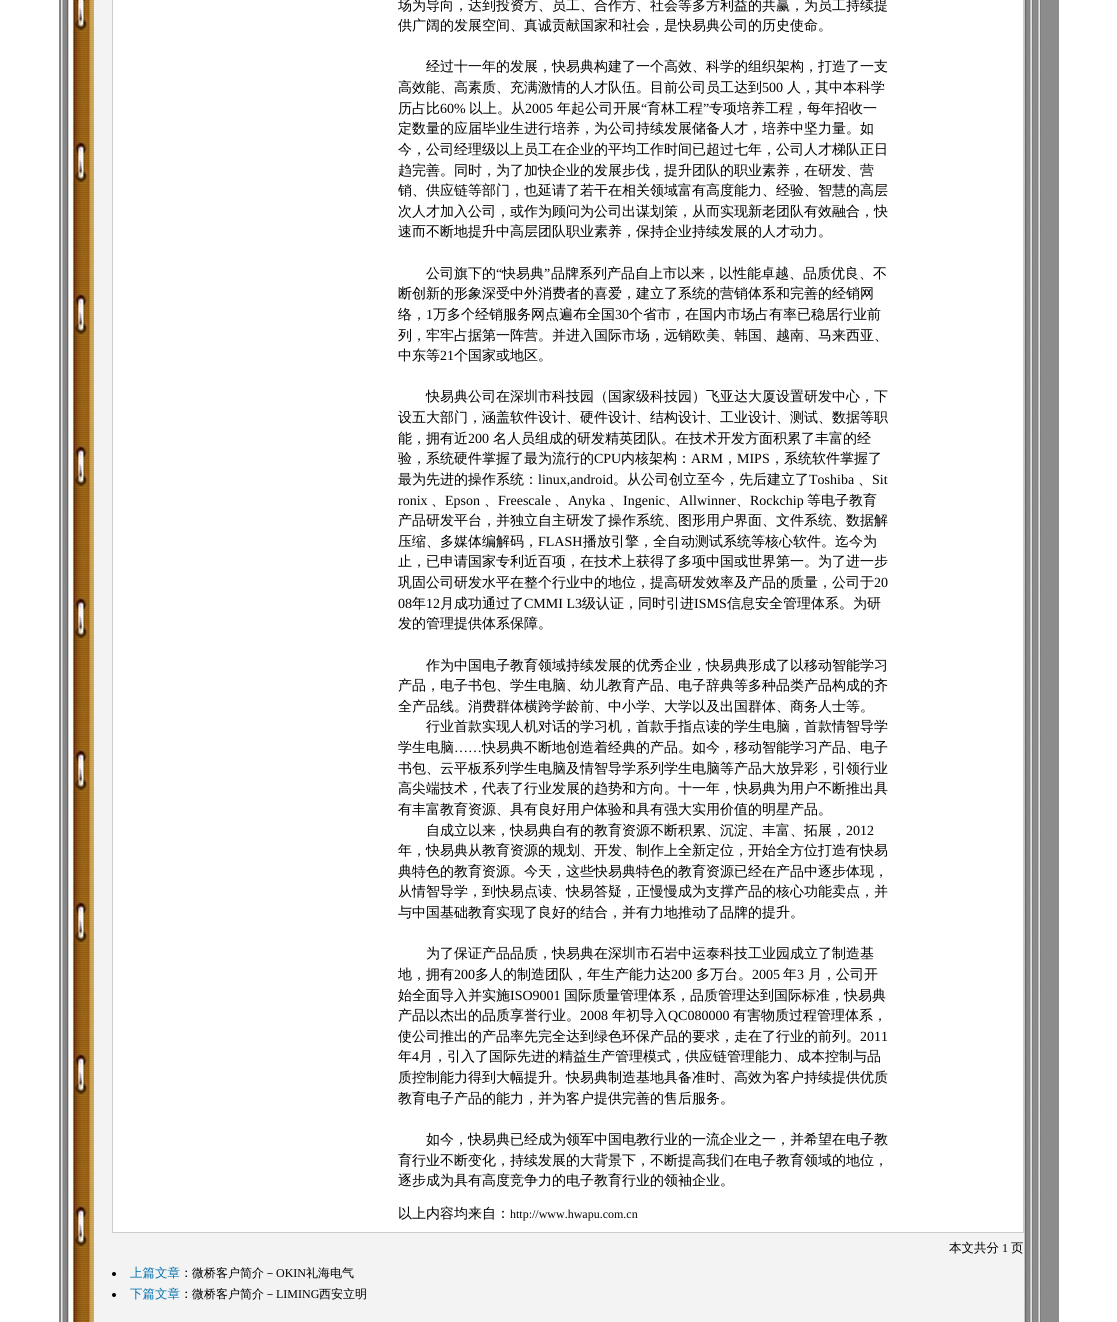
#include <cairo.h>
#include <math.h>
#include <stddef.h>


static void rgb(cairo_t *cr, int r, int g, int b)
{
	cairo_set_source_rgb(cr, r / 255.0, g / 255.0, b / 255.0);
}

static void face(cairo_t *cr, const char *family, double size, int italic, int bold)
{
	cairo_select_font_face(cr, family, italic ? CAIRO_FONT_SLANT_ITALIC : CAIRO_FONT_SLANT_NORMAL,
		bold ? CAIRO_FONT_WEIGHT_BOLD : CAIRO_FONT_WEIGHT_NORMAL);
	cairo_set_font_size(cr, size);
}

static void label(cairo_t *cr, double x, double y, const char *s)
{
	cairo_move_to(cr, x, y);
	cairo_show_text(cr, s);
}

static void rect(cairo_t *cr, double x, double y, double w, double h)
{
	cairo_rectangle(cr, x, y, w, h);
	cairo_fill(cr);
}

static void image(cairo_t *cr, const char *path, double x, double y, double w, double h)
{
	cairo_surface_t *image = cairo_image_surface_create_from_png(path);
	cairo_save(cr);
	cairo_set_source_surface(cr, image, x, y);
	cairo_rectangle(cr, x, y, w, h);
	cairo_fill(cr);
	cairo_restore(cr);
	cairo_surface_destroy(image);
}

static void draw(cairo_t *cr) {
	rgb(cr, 255, 255, 255);
	cairo_paint(cr);
	image(cr, "image0.png", 59, 0, 1000, 1322);
	rgb(cr, 243, 243, 243);
	rect(cr, 94, 0, 930, 1322);
	rgb(cr, 204, 204, 204);
	rect(cr, 112, 0, 912, 1233);
	rgb(cr, 255, 255, 255);
	rect(cr, 113, 0, 910, 1232);
	face(cr, "WenQuanYi Zen Hei Medium", 14, 0, 0);
	rgb(cr, 0, 0, 0);
	label(cr, 398, 10, "场为导向，达到投资方、员工、合作方、社会等多方利益的共赢，为员工持续提");
	label(cr, 398, 30, "供广阔的发展空间、真诚贡献国家和社会，是快易典公司的历史使命。");
	label(cr, 426, 71, "经过十一年的发展，快易典构建了一个高效、科学的组织架构，打造了一支");
	label(cr, 398, 92, "高效能、高素质、充满激情的人才队伍。目前公司员工达到");
	face(cr, "Liberation Serif", 14, 0, 0);
	label(cr, 762, 92, "500");
	face(cr, "WenQuanYi Zen Hei Medium", 14, 0, 0);
	label(cr, 787, 92, "人，其中本科学");
	label(cr, 398, 113, "历占比");
	face(cr, "Liberation Serif", 14, 0, 0);
	label(cr, 440, 113, "60%");
	face(cr, "WenQuanYi Zen Hei Medium", 14, 0, 0);
	label(cr, 469, 113, "以上。从");
	face(cr, "Liberation Serif", 14, 0, 0);
	label(cr, 525, 113, "2005");
	face(cr, "WenQuanYi Zen Hei Medium", 14, 0, 0);
	label(cr, 557, 113, "年起公司开展");
	face(cr, "Liberation Serif", 14, 0, 0);
	label(cr, 641, 113, "“");
	face(cr, "WenQuanYi Zen Hei Medium", 14, 0, 0);
	label(cr, 647, 113, "育林工程");
	face(cr, "Liberation Serif", 14, 0, 0);
	label(cr, 703, 113, "”");
	face(cr, "WenQuanYi Zen Hei Medium", 14, 0, 0);
	label(cr, 709, 113, "专项培养工程，每年招收一");
	label(cr, 398, 133, "定数量的应届毕业生进行培养，为公司持续发展储备人才，培养中坚力量。如");
	label(cr, 398, 154, "今，公司经理级以上员工在企业的平均工作时间已超过七年，公司人才梯队正日");
	label(cr, 398, 175, "趋完善。同时，为了加快企业的发展步伐，提升团队的职业素养，在研发、营");
	label(cr, 398, 195, "销、供应链等部门，也延请了若干在相关领域富有高度能力、经验、智慧的高层");
	label(cr, 398, 216, "次人才加入公司，或作为顾问为公司出谋划策，从而实现新老团队有效融合，快");
	label(cr, 398, 236, "速而不断地提升中高层团队职业素养，保持企业持续发展的人才动力。");
	label(cr, 426, 278, "公司旗下的");
	face(cr, "Liberation Serif", 14, 0, 0);
	label(cr, 496, 278, "“");
	face(cr, "WenQuanYi Zen Hei Medium", 14, 0, 0);
	label(cr, 502, 278, "快易典");
	face(cr, "Liberation Serif", 14, 0, 0);
	label(cr, 544, 278, "”");
	face(cr, "WenQuanYi Zen Hei Medium", 14, 0, 0);
	label(cr, 551, 278, "品牌系列产品自上市以来，以性能卓越、品质优良、不");
	label(cr, 398, 298, "断创新的形象深受中外消费者的喜爱，建立了系统的营销体系和完善的经销网");
	label(cr, 398, 319, "络，");
	face(cr, "Liberation Serif", 14, 0, 0);
	label(cr, 426, 319, "1");
	face(cr, "WenQuanYi Zen Hei Medium", 14, 0, 0);
	label(cr, 433, 319, "万多个经销服务网点遍布全国");
	face(cr, "Liberation Serif", 14, 0, 0);
	label(cr, 615, 319, "30");
	face(cr, "WenQuanYi Zen Hei Medium", 14, 0, 0);
	label(cr, 629, 319, "个省市，在国内市场占有率已稳居行业前");
	label(cr, 398, 340, "列，牢牢占据第一阵营。并进入国际市场，远销欧美、韩国、越南、马来西亚、");
	label(cr, 398, 360, "中东等");
	face(cr, "Liberation Serif", 14, 0, 0);
	label(cr, 440, 360, "21");
	face(cr, "WenQuanYi Zen Hei Medium", 14, 0, 0);
	label(cr, 454, 360, "个国家或地区。");
	label(cr, 426, 401, "快易典公司在深圳市科技园（国家级科技园）飞亚达大厦设置研发中心，下");
	label(cr, 398, 422, "设五大部门，涵盖软件设计、硬件设计、结构设计、工业设计、测试、数据等职");
	label(cr, 398, 443, "能，拥有近");
	face(cr, "Liberation Serif", 14, 0, 0);
	label(cr, 468, 443, "200");
	face(cr, "WenQuanYi Zen Hei Medium", 14, 0, 0);
	label(cr, 493, 443, "名人员组成的研发精英团队。在技术开发方面积累了丰富的经");
	label(cr, 398, 463, "验，系统硬件掌握了最为流行的");
	face(cr, "Liberation Serif", 14, 0, 0);
	label(cr, 594, 463, "CPU");
	face(cr, "WenQuanYi Zen Hei Medium", 14, 0, 0);
	label(cr, 621, 463, "内核架构：");
	face(cr, "Liberation Serif", 14, 0, 0);
	label(cr, 691, 463, "ARM");
	face(cr, "WenQuanYi Zen Hei Medium", 14, 0, 0);
	label(cr, 723, 463, "，");
	face(cr, "Liberation Serif", 14, 0, 0);
	label(cr, 737, 463, "MIPS");
	face(cr, "WenQuanYi Zen Hei Medium", 14, 0, 0);
	label(cr, 770, 463, "，系统软件掌握了");
	label(cr, 398, 484, "最为先进的操作系统：");
	face(cr, "Liberation Serif", 14, 0, 0);
	label(cr, 538, 484, "linux,android");
	face(cr, "WenQuanYi Zen Hei Medium", 14, 0, 0);
	label(cr, 613, 484, "。从公司创立至今，先后建立了");
	face(cr, "Liberation Serif", 14, 0, 0);
	label(cr, 809, 484, "Toshiba");
	face(cr, "WenQuanYi Zen Hei Medium", 14, 0, 0);
	label(cr, 858, 484, "、");
	face(cr, "Liberation Serif", 14, 0, 0);
	label(cr, 872, 484, "Sit");
	label(cr, 398, 505, "ronix");
	face(cr, "WenQuanYi Zen Hei Medium", 14, 0, 0);
	label(cr, 431, 505, "、");
	face(cr, "Liberation Serif", 14, 0, 0);
	label(cr, 445, 505, "Epson");
	face(cr, "WenQuanYi Zen Hei Medium", 14, 0, 0);
	label(cr, 484, 505, "、");
	face(cr, "Liberation Serif", 14, 0, 0);
	label(cr, 498, 505, "Freescale");
	face(cr, "WenQuanYi Zen Hei Medium", 14, 0, 0);
	label(cr, 554, 505, "、");
	face(cr, "Liberation Serif", 14, 0, 0);
	label(cr, 568, 505, "Anyka");
	face(cr, "WenQuanYi Zen Hei Medium", 14, 0, 0);
	label(cr, 609, 505, "、");
	face(cr, "Liberation Serif", 14, 0, 0);
	label(cr, 623, 505, "Ingenic");
	face(cr, "WenQuanYi Zen Hei Medium", 14, 0, 0);
	label(cr, 665, 505, "、");
	face(cr, "Liberation Serif", 14, 0, 0);
	label(cr, 679, 505, "Allwinner");
	face(cr, "WenQuanYi Zen Hei Medium", 14, 0, 0);
	label(cr, 736, 505, "、");
	face(cr, "Liberation Serif", 14, 0, 0);
	label(cr, 750, 505, "Rockchip");
	face(cr, "WenQuanYi Zen Hei Medium", 14, 0, 0);
	label(cr, 807, 505, "等电子教育");
	label(cr, 398, 525, "产品研发平台，并独立自主研发了操作系统、图形用户界面、文件系统、数据解");
	label(cr, 398, 546, "压缩、多媒体编解码，");
	face(cr, "Liberation Serif", 14, 0, 0);
	label(cr, 538, 546, "FLASH");
	face(cr, "WenQuanYi Zen Hei Medium", 14, 0, 0);
	label(cr, 583, 546, "播放引擎，全自动测试系统等核心软件。迄今为");
	label(cr, 398, 566, "止，已申请国家专利近百项，在技术上获得了多项中国或世界第一。为了进一步");
	label(cr, 398, 587, "巩固公司研发水平在整个行业中的地位，提高研发效率及产品的质量，公司于");
	face(cr, "Liberation Serif", 14, 0, 0);
	label(cr, 874, 587, "20");
	label(cr, 398, 608, "08");
	face(cr, "WenQuanYi Zen Hei Medium", 14, 0, 0);
	label(cr, 412, 608, "年");
	face(cr, "Liberation Serif", 14, 0, 0);
	label(cr, 426, 608, "12");
	face(cr, "WenQuanYi Zen Hei Medium", 14, 0, 0);
	label(cr, 440, 608, "月成功通过了");
	face(cr, "Liberation Serif", 14, 0, 0);
	label(cr, 524, 608, "CMMI L3");
	face(cr, "WenQuanYi Zen Hei Medium", 14, 0, 0);
	label(cr, 582, 608, "级认证，同时引进");
	face(cr, "Liberation Serif", 14, 0, 0);
	label(cr, 694, 608, "ISMS");
	face(cr, "WenQuanYi Zen Hei Medium", 14, 0, 0);
	label(cr, 727, 608, "信息安全管理体系。为研");
	label(cr, 398, 628, "发的管理提供体系保障。");
	label(cr, 426, 670, "作为中国电子教育领域持续发展的优秀企业，快易典形成了以移动智能学习");
	label(cr, 398, 690, "产品，电子书包、学生电脑、幼儿教育产品、电子辞典等多种品类产品构成的齐");
	label(cr, 398, 711, "全产品线。消费群体横跨学龄前、中小学、大学以及出国群体、商务人士等。");
	label(cr, 426, 731, "行业首款实现人机对话的学习机，首款手指点读的学生电脑，首款情智导学");
	label(cr, 398, 752, "学生电脑");
	face(cr, "Liberation Serif", 14, 0, 0);
	label(cr, 454, 752, "……");
	face(cr, "WenQuanYi Zen Hei Medium", 14, 0, 0);
	label(cr, 482, 752, "快易典不断地创造着经典的产品。如今，移动智能学习产品、电子");
	label(cr, 398, 773, "书包、云平板系列学生电脑及情智导学系列学生电脑等产品大放异彩，引领行业");
	label(cr, 398, 793, "高尖端技术，代表了行业发展的趋势和方向。十一年，快易典为用户不断推出具");
	label(cr, 398, 814, "有丰富教育资源、具有良好用户体验和具有强大实用价值的明星产品。");
	label(cr, 426, 835, "自成立以来，快易典自有的教育资源不断积累、沉淀、丰富、拓展，");
	face(cr, "Liberation Serif", 14, 0, 0);
	label(cr, 846, 835, "2012");
	face(cr, "WenQuanYi Zen Hei Medium", 14, 0, 0);
	label(cr, 398, 855, "年，快易典从教育资源的规划、开发、制作上全新定位，开始全方位打造有快易");
	label(cr, 398, 876, "典特色的教育资源。今天，这些快易典特色的教育资源已经在产品中逐步体现，");
	label(cr, 398, 896, "从情智导学，到快易点读、快易答疑，正慢慢成为支撑产品的核心功能卖点，并");
	label(cr, 398, 917, "与中国基础教育实现了良好的结合，并有力地推动了品牌的提升。");
	label(cr, 426, 958, "为了保证产品品质，快易典在深圳市石岩中运泰科技工业园成立了制造基");
	label(cr, 398, 979, "地，拥有");
	face(cr, "Liberation Serif", 14, 0, 0);
	label(cr, 454, 979, "200");
	face(cr, "WenQuanYi Zen Hei Medium", 14, 0, 0);
	label(cr, 475, 979, "多人的制造团队，年生产能力达");
	face(cr, "Liberation Serif", 14, 0, 0);
	label(cr, 671, 979, "200");
	face(cr, "WenQuanYi Zen Hei Medium", 14, 0, 0);
	label(cr, 696, 979, "多万台。");
	face(cr, "Liberation Serif", 14, 0, 0);
	label(cr, 752, 979, "2005");
	face(cr, "WenQuanYi Zen Hei Medium", 14, 0, 0);
	label(cr, 783, 979, "年");
	face(cr, "Liberation Serif", 14, 0, 0);
	label(cr, 797, 979, "3");
	face(cr, "WenQuanYi Zen Hei Medium", 14, 0, 0);
	label(cr, 808, 979, "月，公司开");
	label(cr, 398, 1000, "始全面导入并实施");
	face(cr, "Liberation Serif", 14, 0, 0);
	label(cr, 510, 1000, "ISO9001");
	face(cr, "WenQuanYi Zen Hei Medium", 14, 0, 0);
	label(cr, 564, 1000, "国际质量管理体系，品质管理达到国际标准，快易典");
	label(cr, 398, 1020, "产品以杰出的品质享誉行业。");
	face(cr, "Liberation Serif", 14, 0, 0);
	label(cr, 580, 1020, "2008");
	face(cr, "WenQuanYi Zen Hei Medium", 14, 0, 0);
	label(cr, 612, 1020, "年初导入");
	face(cr, "Liberation Serif", 14, 0, 0);
	label(cr, 668, 1020, "QC080000");
	face(cr, "WenQuanYi Zen Hei Medium", 14, 0, 0);
	label(cr, 733, 1020, "有害物质过程管理体系，");
	label(cr, 398, 1041, "使公司推出的产品率先完全达到绿色环保产品的要求，走在了行业的前列。");
	face(cr, "Liberation Serif", 14, 0, 0);
	label(cr, 860, 1041, "2011");
	face(cr, "WenQuanYi Zen Hei Medium", 14, 0, 0);
	label(cr, 398, 1061, "年");
	face(cr, "Liberation Serif", 14, 0, 0);
	label(cr, 412, 1061, "4");
	face(cr, "WenQuanYi Zen Hei Medium", 14, 0, 0);
	label(cr, 419, 1061, "月，引入了国际先进的精益生产管理模式，供应链管理能力、成本控制与品");
	label(cr, 398, 1082, "质控制能力得到大幅提升。快易典制造基地具备准时、高效为客户持续提供优质");
	label(cr, 398, 1103, "教育电子产品的能力，并为客户提供完善的售后服务。");
	label(cr, 426, 1144, "如今，快易典已经成为领军中国电教行业的一流企业之一，并希望在电子教");
	label(cr, 398, 1165, "育行业不断变化，持续发展的大背景下，不断提高我们在电子教育领域的地位，");
	label(cr, 398, 1185, "逐步成为具有高度竞争力的电子教育行业的领袖企业。");
	label(cr, 398, 1218, "以上内容均来自：");
	face(cr, "Liberation Serif", 12, 0, 0);
	label(cr, 510, 1218, "http://www.hwapu.com.cn");
	face(cr, "WenQuanYi Zen Hei Medium", 12.5, 0, 0);
	label(cr, 949, 1252, "本文共分");
	face(cr, "Liberation Serif", 12, 0, 0);
	label(cr, 1002, 1252, "1");
	face(cr, "WenQuanYi Zen Hei Medium", 12.5, 0, 0);
	label(cr, 1011, 1252, "页");
	cairo_new_path(cr);
	cairo_arc(cr, 114, 1274, 2, 0, 2 * M_PI);
	cairo_fill(cr);
	rgb(cr, 7, 114, 177);
	label(cr, 130, 1277, "上篇文章");
	rgb(cr, 0, 0, 0);
	label(cr, 180, 1277, "：");
	face(cr, "WenQuanYi Zen Hei Medium", 12, 0, 0);
	label(cr, 192, 1277, "微桥客户简介－");
	face(cr, "Liberation Serif", 12, 0, 0);
	label(cr, 276, 1277, "OKIN");
	face(cr, "WenQuanYi Zen Hei Medium", 12, 0, 0);
	label(cr, 306, 1277, "礼海电气");
	cairo_new_path(cr);
	cairo_arc(cr, 114, 1295, 2, 0, 2 * M_PI);
	cairo_fill(cr);
	face(cr, "WenQuanYi Zen Hei Medium", 12.5, 0, 0);
	rgb(cr, 7, 114, 177);
	label(cr, 130, 1298, "下篇文章");
	rgb(cr, 0, 0, 0);
	label(cr, 180, 1298, "：");
	face(cr, "WenQuanYi Zen Hei Medium", 12, 0, 0);
	label(cr, 192, 1298, "微桥客户简介－");
	face(cr, "Liberation Serif", 12, 0, 0);
	label(cr, 276, 1298, "LIMING");
	face(cr, "WenQuanYi Zen Hei Medium", 12, 0, 0);
	label(cr, 319, 1298, "西安立明");
}

int main(void) {
	cairo_surface_t *surface = cairo_image_surface_create(CAIRO_FORMAT_RGB24, 1117, 1322);
	cairo_t *cr = cairo_create(surface);
	cairo_font_options_t *options = cairo_font_options_create();
	cairo_font_options_set_hint_metrics(options, CAIRO_HINT_METRICS_OFF);
	cairo_font_options_set_hint_style(options, CAIRO_HINT_STYLE_NONE);
	cairo_set_font_options(cr, options);
	cairo_set_miter_limit(cr, 4);
	draw(cr);
	cairo_surface_write_to_png(surface, "render.png");
	cairo_font_options_destroy(options);
	cairo_destroy(cr);
	cairo_surface_destroy(surface);
	return 0;
}
